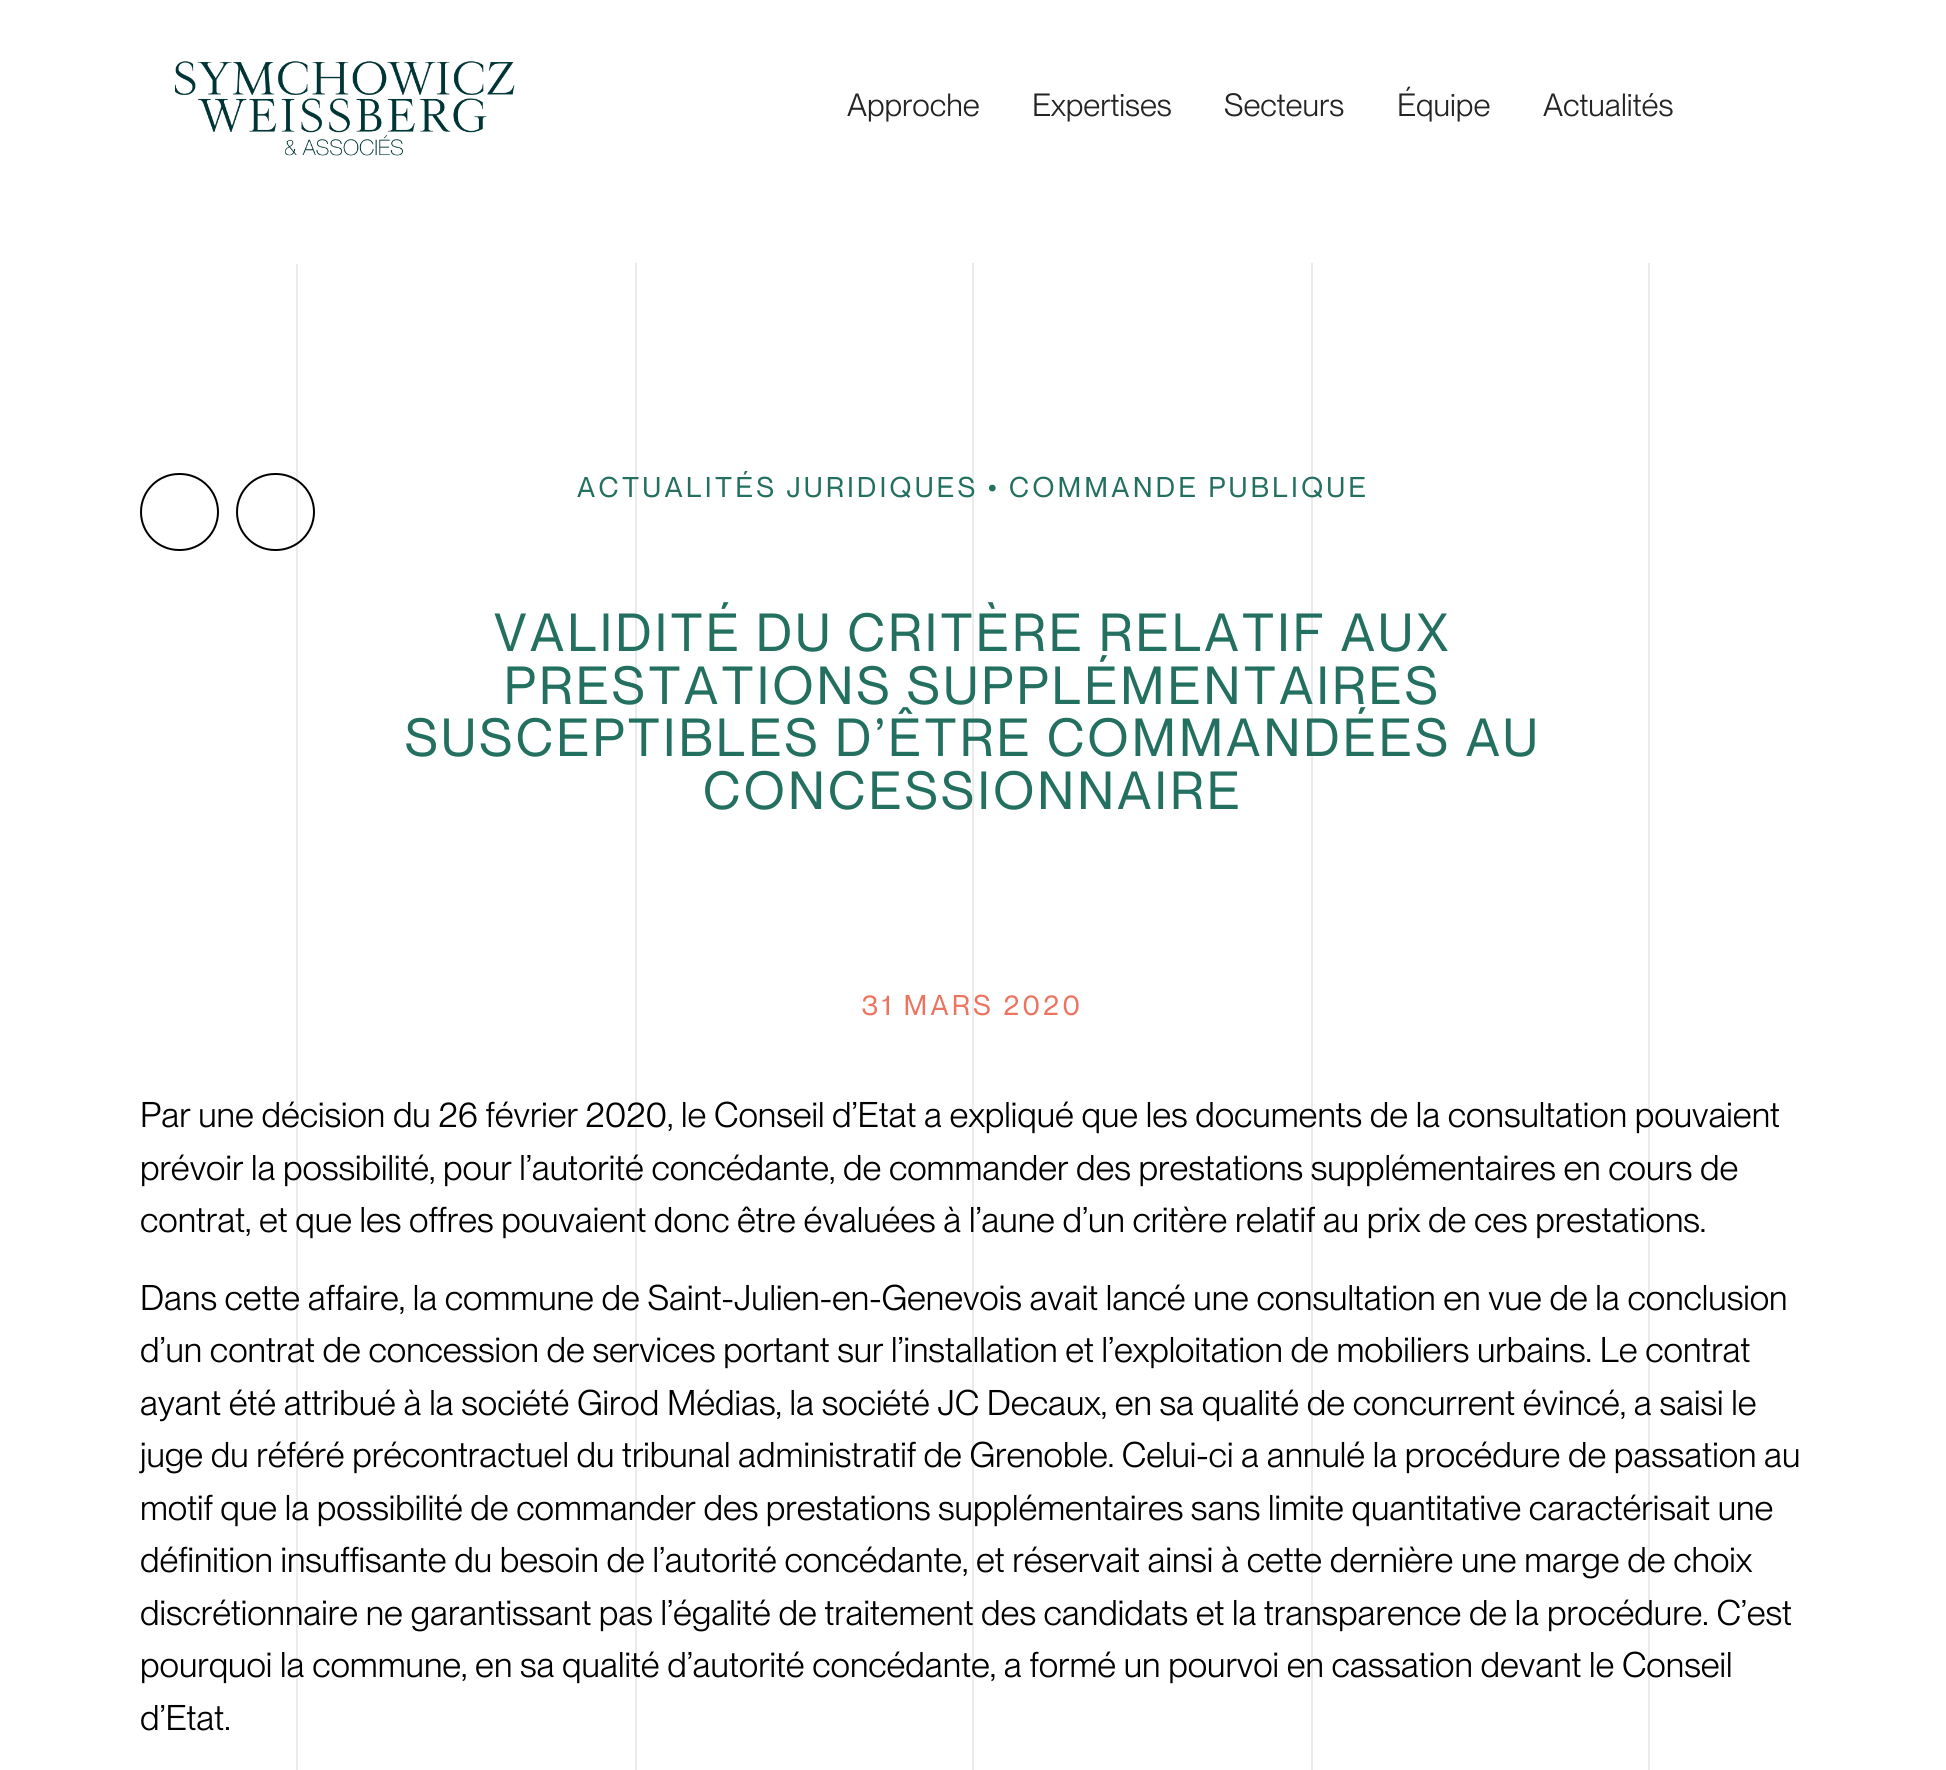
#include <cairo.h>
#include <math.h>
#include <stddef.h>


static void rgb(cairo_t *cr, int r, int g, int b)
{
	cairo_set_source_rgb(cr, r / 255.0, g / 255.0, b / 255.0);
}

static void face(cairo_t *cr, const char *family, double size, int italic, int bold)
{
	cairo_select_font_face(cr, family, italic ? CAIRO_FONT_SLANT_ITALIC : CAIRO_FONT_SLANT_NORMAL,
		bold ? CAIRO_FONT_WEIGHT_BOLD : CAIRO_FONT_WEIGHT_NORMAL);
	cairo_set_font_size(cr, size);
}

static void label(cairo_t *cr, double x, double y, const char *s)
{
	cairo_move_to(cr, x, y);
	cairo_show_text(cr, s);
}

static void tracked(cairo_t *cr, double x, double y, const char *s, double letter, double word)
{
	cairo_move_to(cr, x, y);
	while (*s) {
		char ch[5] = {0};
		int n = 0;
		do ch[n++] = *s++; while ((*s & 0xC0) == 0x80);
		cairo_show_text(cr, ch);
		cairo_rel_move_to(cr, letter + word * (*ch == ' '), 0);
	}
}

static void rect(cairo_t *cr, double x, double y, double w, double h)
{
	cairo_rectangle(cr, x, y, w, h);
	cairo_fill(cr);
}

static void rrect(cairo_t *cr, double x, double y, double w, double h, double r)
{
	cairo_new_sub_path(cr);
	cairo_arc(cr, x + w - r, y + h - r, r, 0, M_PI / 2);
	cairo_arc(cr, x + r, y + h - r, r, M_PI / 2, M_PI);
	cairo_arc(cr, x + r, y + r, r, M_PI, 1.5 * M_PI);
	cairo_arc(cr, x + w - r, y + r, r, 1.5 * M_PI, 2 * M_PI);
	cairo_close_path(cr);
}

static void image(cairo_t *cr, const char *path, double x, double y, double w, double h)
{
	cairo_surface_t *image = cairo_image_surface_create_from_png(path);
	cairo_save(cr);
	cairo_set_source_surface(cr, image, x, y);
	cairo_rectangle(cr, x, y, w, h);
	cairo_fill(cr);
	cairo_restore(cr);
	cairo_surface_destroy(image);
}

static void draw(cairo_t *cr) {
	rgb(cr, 255, 255, 255);
	cairo_paint(cr);
	image(cr, "image0.png", 175, 61, 340, 95);
	face(cr, "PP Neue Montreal", 31.5, 0, 0);
	rgb(cr, 36, 36, 36);
	label(cr, 847, 116, "Approche");
	label(cr, 1032, 116, "Expertises");
	label(cr, 1224, 116, "Secteurs");
	label(cr, 1397, 116, "Équipe");
	label(cr, 1543, 116, "Actualités");
	rgb(cr, 235, 235, 235);
	rect(cr, 296, 264, 2, 1506);
	rect(cr, 972, 263, 2, 1507);
	rect(cr, 1648, 263, 2, 1507);
	rect(cr, 1311, 263, 2, 1507);
	rect(cr, 635, 263, 2, 1507);
	rrect(cr, 141, 474, 77, 76, 38);
	rgb(cr, 0, 0, 0);
	cairo_stroke(cr);
	rrect(cr, 237, 474, 77, 76, 38);
	cairo_stroke(cr);
	face(cr, "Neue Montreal", 28, 0, 0);
	rgb(cr, 35, 112, 96);
	tracked(cr, 577, 497, "ACTUALITÉS JURIDIQUES • COMMANDE PUBLIQUE", 3.5, 0);
	face(cr, "Neue Montreal", 52.5, 0, 0);
	tracked(cr, 494, 651, "VALIDITÉ DU CRITÈRE RELATIF AUX", 3.5, 0);
	tracked(cr, 504, 704, "PRESTATIONS SUPPLÉMENTAIRES", 3.5, 0);
	tracked(cr, 405, 756, "SUSCEPTIBLES D’ÊTRE COMMANDÉES AU", 3.5, 0);
	tracked(cr, 703, 809, "CONCESSIONNAIRE", 3.5, 0);
	face(cr, "Neue Montreal", 28, 0, 0);
	rgb(cr, 236, 116, 97);
	tracked(cr, 862, 1015, "31 MARS 2020", 3.5, 0);
	face(cr, "PP Neue Montreal", 35, 0, 0);
	rgb(cr, 0, 0, 0);
	label(cr, 140, 1127, "Par une décision du 26 février 2020, le Conseil d’Etat a expliqué que les documents de la consultation pouvaient");
	label(cr, 140, 1180, "prévoir la possibilité, pour l’autorité concédante, de commander des prestations supplémentaires en cours de");
	label(cr, 140, 1232, "contrat, et que les offres pouvaient donc être évaluées à l’aune d’un critère relatif au prix de ces prestations.");
	label(cr, 140, 1310, "Dans cette affaire, la commune de Saint-Julien-en-Genevois avait lancé une consultation en vue de la conclusion");
	label(cr, 140, 1362, "d’un contrat de concession de services portant sur l’installation et l’exploitation de mobiliers urbains. Le contrat");
	label(cr, 140, 1415, "ayant été attribué à la société Girod Médias, la société JC Decaux, en sa qualité de concurrent évincé, a saisi le");
	label(cr, 140, 1467, "juge du référé précontractuel du tribunal administratif de Grenoble. Celui-ci a annulé la procédure de passation au");
	label(cr, 140, 1520, "motif que la possibilité de commander des prestations supplémentaires sans limite quantitative caractérisait une");
	label(cr, 140, 1572, "définition insuffisante du besoin de l’autorité concédante, et réservait ainsi à cette dernière une marge de choix");
	label(cr, 140, 1625, "discrétionnaire ne garantissant pas l’égalité de traitement des candidats et la transparence de la procédure. C’est");
	label(cr, 140, 1677, "pourquoi la commune, en sa qualité d’autorité concédante, a formé un pourvoi en cassation devant le Conseil");
	label(cr, 140, 1730, "d’Etat.");
}

int main(void) {
	cairo_surface_t *surface = cairo_image_surface_create(CAIRO_FORMAT_RGB24, 1946, 1770);
	cairo_t *cr = cairo_create(surface);
	cairo_font_options_t *options = cairo_font_options_create();
	cairo_font_options_set_hint_metrics(options, CAIRO_HINT_METRICS_OFF);
	cairo_font_options_set_hint_style(options, CAIRO_HINT_STYLE_NONE);
	cairo_set_font_options(cr, options);
	cairo_set_miter_limit(cr, 4);
	draw(cr);
	cairo_surface_write_to_png(surface, "render.png");
	cairo_font_options_destroy(options);
	cairo_destroy(cr);
	cairo_surface_destroy(surface);
	return 0;
}
